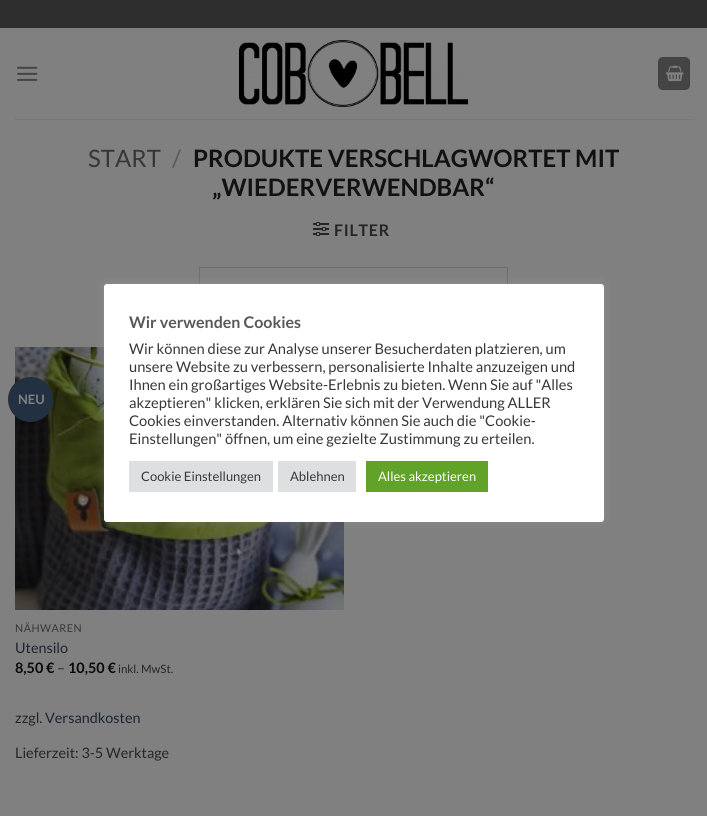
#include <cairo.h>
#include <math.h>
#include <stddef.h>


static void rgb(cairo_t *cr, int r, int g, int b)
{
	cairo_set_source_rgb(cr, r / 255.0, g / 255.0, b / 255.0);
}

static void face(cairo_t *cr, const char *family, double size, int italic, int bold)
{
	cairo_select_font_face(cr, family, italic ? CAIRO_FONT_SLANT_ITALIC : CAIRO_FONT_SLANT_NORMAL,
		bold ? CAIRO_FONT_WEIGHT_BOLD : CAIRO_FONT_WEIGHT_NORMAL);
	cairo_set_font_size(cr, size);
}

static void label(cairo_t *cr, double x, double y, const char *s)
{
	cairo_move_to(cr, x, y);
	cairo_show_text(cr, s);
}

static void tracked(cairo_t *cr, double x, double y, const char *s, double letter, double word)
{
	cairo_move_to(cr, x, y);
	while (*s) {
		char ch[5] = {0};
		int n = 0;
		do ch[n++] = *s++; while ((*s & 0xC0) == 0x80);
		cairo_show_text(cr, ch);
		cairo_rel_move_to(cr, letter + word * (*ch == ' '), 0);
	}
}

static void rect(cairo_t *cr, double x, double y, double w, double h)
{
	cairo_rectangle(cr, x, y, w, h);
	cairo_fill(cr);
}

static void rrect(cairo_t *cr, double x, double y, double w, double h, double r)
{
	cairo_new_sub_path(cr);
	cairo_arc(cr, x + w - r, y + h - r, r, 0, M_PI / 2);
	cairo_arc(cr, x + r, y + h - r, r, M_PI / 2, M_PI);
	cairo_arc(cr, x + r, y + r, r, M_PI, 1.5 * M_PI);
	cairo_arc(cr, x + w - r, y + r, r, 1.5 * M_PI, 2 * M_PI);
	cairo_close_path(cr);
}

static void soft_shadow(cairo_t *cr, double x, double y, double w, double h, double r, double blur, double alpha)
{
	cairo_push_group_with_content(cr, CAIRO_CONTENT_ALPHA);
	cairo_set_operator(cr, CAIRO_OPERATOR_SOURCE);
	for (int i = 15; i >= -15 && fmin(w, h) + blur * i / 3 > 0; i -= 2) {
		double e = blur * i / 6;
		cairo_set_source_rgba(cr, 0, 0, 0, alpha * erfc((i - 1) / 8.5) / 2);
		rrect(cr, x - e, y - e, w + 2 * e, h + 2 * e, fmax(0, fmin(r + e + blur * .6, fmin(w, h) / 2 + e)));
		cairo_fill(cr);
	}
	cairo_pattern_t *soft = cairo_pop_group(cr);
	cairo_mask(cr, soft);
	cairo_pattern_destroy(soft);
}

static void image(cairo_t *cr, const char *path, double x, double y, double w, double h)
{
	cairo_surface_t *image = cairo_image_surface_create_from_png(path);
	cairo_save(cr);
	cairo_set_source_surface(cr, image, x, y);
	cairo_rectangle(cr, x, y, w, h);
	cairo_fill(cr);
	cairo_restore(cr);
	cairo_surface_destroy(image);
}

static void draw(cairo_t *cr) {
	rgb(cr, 128, 128, 128);
	cairo_paint(cr);
	rgb(cr, 46, 46, 46);
	rect(cr, 0, 0, 707, 28);
	image(cr, "image0.png", 17, 66, 21, 15);
	image(cr, "image1.png", 239, 40, 229, 67);
	rgb(cr, 68, 68, 68);
	rrect(cr, 658, 57, 32, 33, 5);
	cairo_fill(cr);
	cairo_rectangle(cr, 658.5, 57.5, 31, 32);
	cairo_set_source_rgba(cr, 0, 0, 0, 0.05);
	cairo_set_line_width(cr, 1);
	cairo_stroke(cr);
	image(cr, "image2.png", 666, 65, 18, 17);
	rgb(cr, 119, 119, 119);
	rect(cr, 15, 119, 677, 1);
	face(cr, "Lato", 24, 0, 0);
	rgb(cr, 55, 55, 55);
	label(cr, 88, 167, "START");
	rgb(cr, 89, 89, 89);
	label(cr, 172, 167, "/");
	face(cr, "Lato", 24, 0, 1);
	rgb(cr, 17, 17, 17);
	label(cr, 193, 167, "PRODUKTE VERSCHLAGWORTET MIT");
	label(cr, 212, 196, "„WIEDERVERWENDBAR“");
	image(cr, "image3.png", 313, 222, 16, 14);
	face(cr, "Lato", 16, 0, 1);
	rgb(cr, 37, 37, 37);
	tracked(cr, 334, 236, "FILTER", 0.75, 0);
	cairo_rectangle(cr, 199.5, 267.5, 308, 39);
	rgb(cr, 111, 111, 111);
	cairo_stroke(cr);
	image(cr, "image4.png", 15, 347, 329, 263);
	rgb(cr, 34, 48, 66);
	cairo_arc(cr, 30.5, 399.5, 22.5, 0, 2 * M_PI);
	cairo_fill(cr);
	face(cr, "Lato", 13, 0, 1);
	rgb(cr, 128, 128, 128);
	label(cr, 18, 404, "NEU");
	face(cr, "Lato", 10.75, 0, 0);
	rgb(cr, 55, 55, 55);
	tracked(cr, 15, 632, "NÄHWAREN", 0.5, 0);
	face(cr, "Lato", 14.4, 0, 0);
	rgb(cr, 26, 36, 49);
	label(cr, 15, 653, "Utensilo");
	face(cr, "Lato", 14.4, 0, 1);
	rgb(cr, 9, 9, 9);
	label(cr, 15, 673, "8,50 €");
	face(cr, "Lato", 14.4, 0, 0);
	rgb(cr, 37, 37, 37);
	label(cr, 57, 673, "–");
	face(cr, "Lato", 14.4, 0, 1);
	rgb(cr, 9, 9, 9);
	label(cr, 68, 673, "10,50 €");
	face(cr, "Lato", 11.5, 0, 0);
	rgb(cr, 37, 37, 37);
	label(cr, 118, 673, "inkl. MwSt.");
	face(cr, "Lato", 14.4, 0, 0);
	label(cr, 15, 723, "zzgl.");
	rgb(cr, 26, 36, 49);
	label(cr, 45, 723, "Versandkosten");
	rgb(cr, 37, 37, 37);
	label(cr, 15, 758, "Lieferzeit: 3-5 Werktage");
	rgb(cr, 172, 171, 171);
	soft_shadow(cr, 104, 283, 500, 238, 3, 5, 0.3);
	rgb(cr, 255, 255, 255);
	rrect(cr, 104, 284, 500, 238, 3);
	cairo_fill(cr);
	face(cr, "Lato", 16, 0, 1);
	rgb(cr, 89, 89, 89);
	label(cr, 129, 328, "Wir verwenden Cookies");
	face(cr, "Lato", 14.7, 0, 0);
	rgb(cr, 55, 55, 55);
	label(cr, 129, 354, "Wir können diese zur Analyse unserer Besucherdaten platzieren, um");
	label(cr, 129, 372, "unsere Website zu verbessern, personalisierte Inhalte anzuzeigen und");
	label(cr, 129, 390, "Ihnen ein großartiges Website-Erlebnis zu bieten. Wenn Sie auf \"Alles");
	label(cr, 129, 408, "akzeptieren\" klicken, erklären Sie sich mit der Verwendung ALLER");
	label(cr, 129, 426, "Cookies einverstanden. Alternativ können Sie auch die \"Cookie-");
	label(cr, 129, 444, "Einstellungen\" öffnen, um eine gezielte Zustimmung zu erteilen.");
	rgb(cr, 222, 223, 224);
	rect(cr, 129, 461, 144, 31);
	face(cr, "Lato", 13, 0, 0);
	rgb(cr, 55, 55, 55);
	label(cr, 141, 481, "Cookie Einstellungen");
	rgb(cr, 222, 223, 224);
	rect(cr, 278, 461, 78, 31);
	rgb(cr, 55, 55, 55);
	label(cr, 290, 481, "Ablehnen");
	rgb(cr, 97, 162, 41);
	rect(cr, 366, 461, 122, 31);
	rgb(cr, 255, 255, 255);
	label(cr, 378, 481, "Alles akzeptieren");
}

int main(void) {
	cairo_surface_t *surface = cairo_image_surface_create(CAIRO_FORMAT_RGB24, 707, 816);
	cairo_t *cr = cairo_create(surface);
	cairo_font_options_t *options = cairo_font_options_create();
	cairo_font_options_set_hint_metrics(options, CAIRO_HINT_METRICS_OFF);
	cairo_font_options_set_hint_style(options, CAIRO_HINT_STYLE_NONE);
	cairo_set_font_options(cr, options);
	cairo_set_miter_limit(cr, 4);
	draw(cr);
	cairo_surface_write_to_png(surface, "render.png");
	cairo_font_options_destroy(options);
	cairo_destroy(cr);
	cairo_surface_destroy(surface);
	return 0;
}
